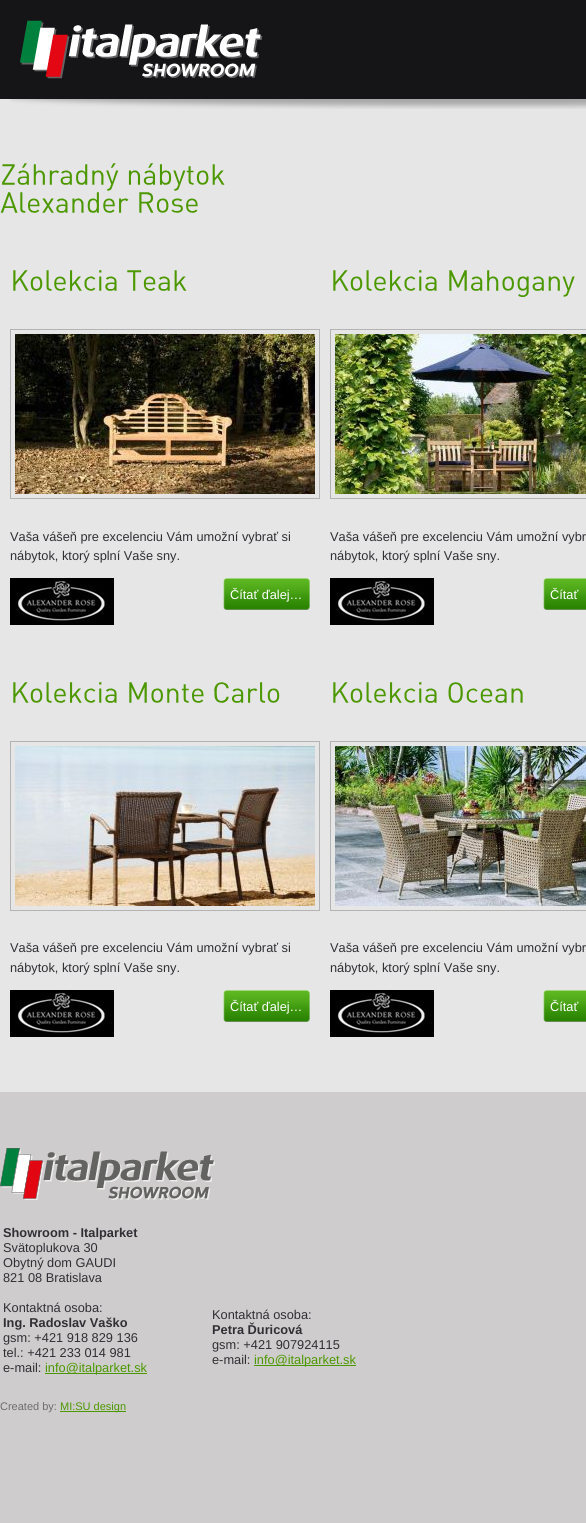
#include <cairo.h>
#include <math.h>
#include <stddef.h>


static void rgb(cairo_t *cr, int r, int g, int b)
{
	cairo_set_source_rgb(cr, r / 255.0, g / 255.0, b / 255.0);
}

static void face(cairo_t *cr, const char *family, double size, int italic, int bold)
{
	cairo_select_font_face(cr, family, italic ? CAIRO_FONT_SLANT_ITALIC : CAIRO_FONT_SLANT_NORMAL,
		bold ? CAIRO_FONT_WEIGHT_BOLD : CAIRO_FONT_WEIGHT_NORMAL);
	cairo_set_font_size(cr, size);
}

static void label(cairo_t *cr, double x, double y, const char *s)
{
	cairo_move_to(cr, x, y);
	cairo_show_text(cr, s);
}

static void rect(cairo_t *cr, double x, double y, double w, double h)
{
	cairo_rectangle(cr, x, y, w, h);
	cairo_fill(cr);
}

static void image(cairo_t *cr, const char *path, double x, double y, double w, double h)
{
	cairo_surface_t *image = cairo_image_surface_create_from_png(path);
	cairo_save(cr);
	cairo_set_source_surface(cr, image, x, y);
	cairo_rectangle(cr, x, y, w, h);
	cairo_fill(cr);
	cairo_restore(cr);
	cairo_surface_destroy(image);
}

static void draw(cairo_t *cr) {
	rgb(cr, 231, 230, 230);
	cairo_paint(cr);
	rgb(cr, 21, 21, 24);
	rect(cr, 0, 0, 586, 99);
	image(cr, "image0.png", 9, 99, 577, 10);
	image(cr, "image1.png", 20, 20, 243, 59);
	image(cr, "image2.png", 2, 163, 117, 28);
	image(cr, "image3.png", 128, 163, 97, 28);
	image(cr, "image4.png", 0, 192, 129, 21);
	image(cr, "image5.png", 139, 192, 59, 21);
	image(cr, "image6.png", 13, 270, 104, 21);
	image(cr, "image7.png", 127, 270, 60, 21);
	cairo_rectangle(cr, 10.5, 329.5, 309, 169);
	rgb(cr, 179, 179, 179);
	cairo_set_line_width(cr, 1);
	cairo_stroke(cr);
	image(cr, "image8.png", 15, 334, 300, 160);
	face(cr, "Liberation Sans", 12.8, 0, 0);
	rgb(cr, 47, 47, 52);
	label(cr, 10, 541, "Vaša vášeň pre excelenciu Vám umožní vybrať si");
	label(cr, 10, 560, "nábytok, ktorý splní Vaše sny.");
	image(cr, "image9.png", 10, 578, 104, 47);
	image(cr, "image10.png", 223, 578, 87, 32);
	rgb(cr, 255, 255, 255);
	label(cr, 230, 599, "Čítať ďalej…");
	image(cr, "image6.png", 333, 270, 104, 21);
	image(cr, "image11.png", 449, 270, 126, 27);
	cairo_rectangle(cr, 330.5, 329.5, 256, 169);
	rgb(cr, 179, 179, 179);
	cairo_stroke(cr);
	image(cr, "image12.png", 335, 334, 251, 160);
	rgb(cr, 47, 47, 52);
	label(cr, 330, 541, "Vaša vášeň pre excelenciu Vám umožní vybr");
	label(cr, 330, 560, "nábytok, ktorý splní Vaše sny.");
	image(cr, "image9.png", 330, 578, 104, 47);
	image(cr, "image13.png", 543, 578, 43, 32);
	rgb(cr, 255, 255, 255);
	label(cr, 550, 599, "Čítať");
	image(cr, "image6.png", 13, 682, 104, 21);
	image(cr, "image14.png", 129, 682, 75, 21);
	image(cr, "image15.png", 214, 682, 66, 21);
	cairo_rectangle(cr, 10.5, 741.5, 309, 169);
	rgb(cr, 179, 179, 179);
	cairo_stroke(cr);
	image(cr, "image16.png", 15, 746, 300, 160);
	rgb(cr, 47, 47, 52);
	label(cr, 10, 952, "Vaša vášeň pre excelenciu Vám umožní vybrať si");
	label(cr, 10, 972, "nábytok, ktorý splní Vaše sny.");
	image(cr, "image9.png", 10, 990, 104, 47);
	image(cr, "image10.png", 223, 990, 87, 32);
	rgb(cr, 255, 255, 255);
	label(cr, 230, 1011, "Čítať ďalej…");
	image(cr, "image6.png", 333, 682, 104, 21);
	image(cr, "image17.png", 448, 682, 75, 21);
	cairo_rectangle(cr, 330.5, 741.5, 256, 169);
	rgb(cr, 179, 179, 179);
	cairo_stroke(cr);
	image(cr, "image18.png", 335, 746, 251, 160);
	rgb(cr, 47, 47, 52);
	label(cr, 330, 952, "Vaša vášeň pre excelenciu Vám umožní vybr");
	label(cr, 330, 972, "nábytok, ktorý splní Vaše sny.");
	image(cr, "image9.png", 330, 990, 104, 47);
	image(cr, "image13.png", 543, 990, 43, 32);
	rgb(cr, 255, 255, 255);
	label(cr, 550, 1011, "Čítať");
	rgb(cr, 206, 204, 204);
	rect(cr, 0, 1092, 586, 431);
	image(cr, "image19.png", 0, 1148, 215, 52);
	face(cr, "Liberation Sans", 12.8, 0, 1);
	rgb(cr, 47, 47, 52);
	label(cr, 3, 1237, "Showroom - Italparket");
	face(cr, "Liberation Sans", 12.8, 0, 0);
	label(cr, 3, 1252, "Svätoplukova 30");
	label(cr, 3, 1267, "Obytný dom GAUDI");
	label(cr, 3, 1282, "821 08 Bratislava");
	label(cr, 3, 1312, "Kontaktná osoba:");
	face(cr, "Liberation Sans", 12.8, 0, 1);
	label(cr, 3, 1327, "Ing. Radoslav Vaško");
	face(cr, "Liberation Sans", 12.8, 0, 0);
	label(cr, 3, 1342, "gsm: +421 918 829 136");
	label(cr, 3, 1357, "tel.: +421 233 014 981");
	label(cr, 3, 1372, "e-mail:");
	rgb(cr, 76, 152, 1);
	rect(cr, 45, 1373, 102, 1);
	label(cr, 45, 1372, "info@italparket.sk");
	rgb(cr, 47, 47, 52);
	label(cr, 212, 1319, "Kontaktná osoba:");
	face(cr, "Liberation Sans", 12.8, 0, 1);
	label(cr, 212, 1334, "Petra Ďuricová");
	face(cr, "Liberation Sans", 12.8, 0, 0);
	label(cr, 212, 1349, "gsm: +421 907924115");
	label(cr, 212, 1364, "e-mail:");
	rgb(cr, 76, 152, 1);
	rect(cr, 254, 1365, 102, 1);
	label(cr, 254, 1364, "info@italparket.sk");
	face(cr, "Liberation Sans", 11, 0, 0);
	rgb(cr, 109, 109, 109);
	label(cr, 0, 1410, "Created by:");
	rgb(cr, 76, 152, 1);
	rect(cr, 60, 1411, 66, 1);
	label(cr, 60, 1410, "MI:SU design");
}

int main(void) {
	cairo_surface_t *surface = cairo_image_surface_create(CAIRO_FORMAT_RGB24, 586, 1523);
	cairo_t *cr = cairo_create(surface);
	cairo_font_options_t *options = cairo_font_options_create();
	cairo_font_options_set_hint_metrics(options, CAIRO_HINT_METRICS_OFF);
	cairo_font_options_set_hint_style(options, CAIRO_HINT_STYLE_NONE);
	cairo_set_font_options(cr, options);
	cairo_set_miter_limit(cr, 4);
	draw(cr);
	cairo_surface_write_to_png(surface, "render.png");
	cairo_font_options_destroy(options);
	cairo_destroy(cr);
	cairo_surface_destroy(surface);
	return 0;
}
